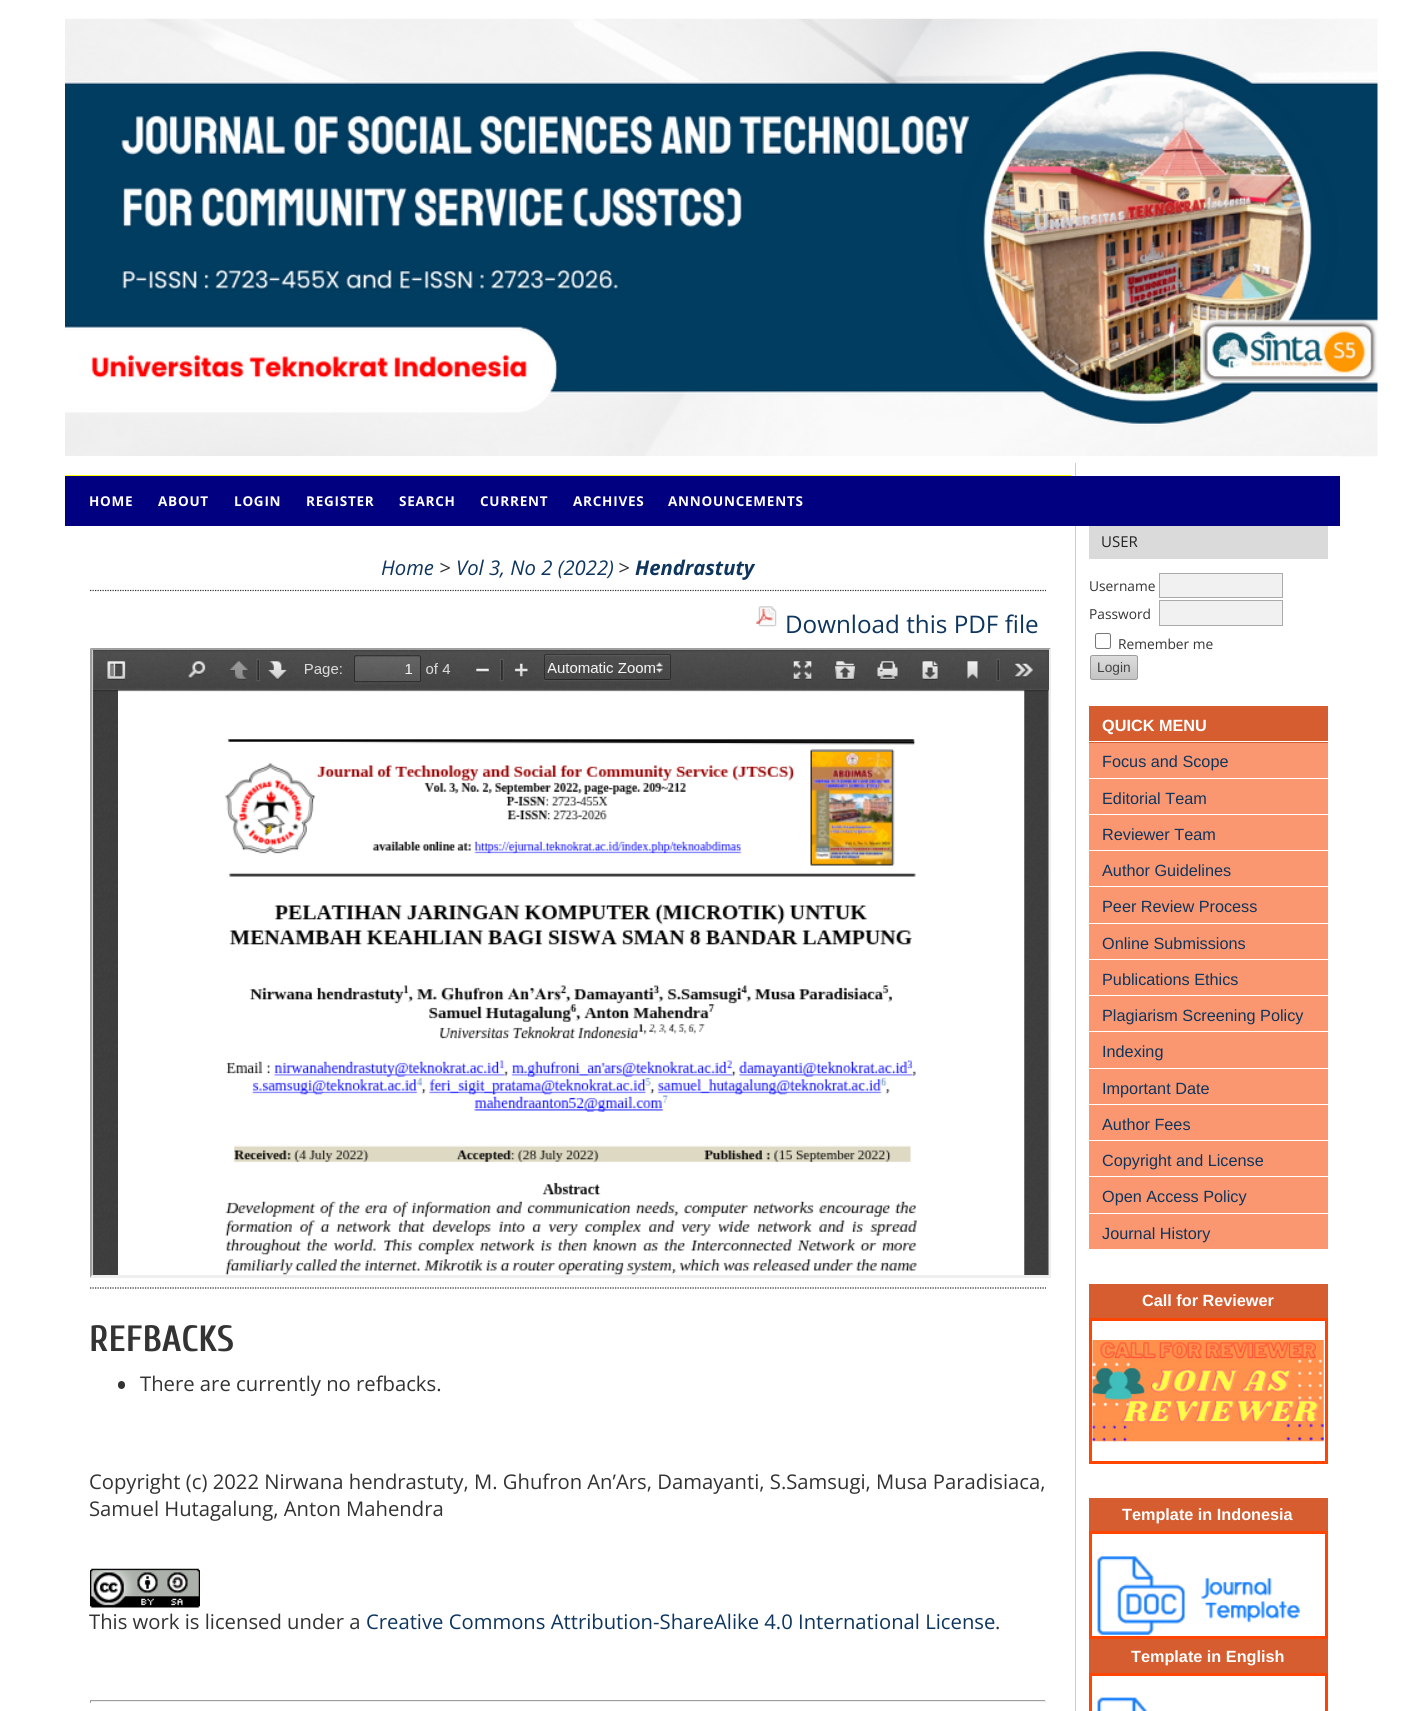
#include <cairo.h>
#include <math.h>
#include <stddef.h>


static void rgb(cairo_t *cr, int r, int g, int b)
{
	cairo_set_source_rgb(cr, r / 255.0, g / 255.0, b / 255.0);
}

static void face(cairo_t *cr, const char *family, double size, int italic, int bold)
{
	cairo_select_font_face(cr, family, italic ? CAIRO_FONT_SLANT_ITALIC : CAIRO_FONT_SLANT_NORMAL,
		bold ? CAIRO_FONT_WEIGHT_BOLD : CAIRO_FONT_WEIGHT_NORMAL);
	cairo_set_font_size(cr, size);
}

static void label(cairo_t *cr, double x, double y, const char *s)
{
	cairo_move_to(cr, x, y);
	cairo_show_text(cr, s);
}

static void tracked(cairo_t *cr, double x, double y, const char *s, double letter, double word)
{
	cairo_move_to(cr, x, y);
	while (*s) {
		char ch[5] = {0};
		int n = 0;
		do ch[n++] = *s++; while ((*s & 0xC0) == 0x80);
		cairo_show_text(cr, ch);
		cairo_rel_move_to(cr, letter + word * (*ch == ' '), 0);
	}
}

static void rect(cairo_t *cr, double x, double y, double w, double h)
{
	cairo_rectangle(cr, x, y, w, h);
	cairo_fill(cr);
}

static void rrect(cairo_t *cr, double x, double y, double w, double h, double r)
{
	cairo_new_sub_path(cr);
	cairo_arc(cr, x + w - r, y + h - r, r, 0, M_PI / 2);
	cairo_arc(cr, x + r, y + h - r, r, M_PI / 2, M_PI);
	cairo_arc(cr, x + r, y + r, r, M_PI, 1.5 * M_PI);
	cairo_arc(cr, x + w - r, y + r, r, 1.5 * M_PI, 2 * M_PI);
	cairo_close_path(cr);
}

static void image(cairo_t *cr, const char *path, double x, double y, double w, double h)
{
	cairo_surface_t *image = cairo_image_surface_create_from_png(path);
	cairo_save(cr);
	cairo_set_source_surface(cr, image, x, y);
	cairo_rectangle(cr, x, y, w, h);
	cairo_fill(cr);
	cairo_restore(cr);
	cairo_surface_destroy(image);
}

static void draw(cairo_t *cr) {
	cairo_pattern_t *gradient;
	rgb(cr, 255, 255, 255);
	cairo_paint(cr);
	image(cr, "image0.png", 65, 18, 1313, 439);
	rgb(cr, 255, 255, 255);
	rect(cr, 65, 456, 1275, 1);
	rgb(cr, 255, 255, 0);
	rect(cr, 65, 475, 1006, 1);
	rgb(cr, 204, 204, 204);
	rect(cr, 1075, 463, 1, 1248);
	rgb(cr, 0, 0, 128);
	rect(cr, 65, 476, 1275, 50);
	face(cr, "Open Sans", 13.5, 0, 1);
	rgb(cr, 255, 255, 255);
	tracked(cr, 89, 506, "HOME", 0.75, 0);
	tracked(cr, 158, 506, "ABOUT", 0.75, 0);
	tracked(cr, 234, 506, "LOGIN", 0.75, 0);
	tracked(cr, 306, 506, "REGISTER", 0.75, 0);
	tracked(cr, 399, 506, "SEARCH", 0.75, 0);
	tracked(cr, 480, 506, "CURRENT", 0.75, 0);
	tracked(cr, 573, 506, "ARCHIVES", 0.75, 0);
	tracked(cr, 668, 506, "ANNOUNCEMENTS", 0.75, 0);
	cairo_new_path(cr);
	cairo_move_to(cr, 90, 590.5);
	cairo_line_to(cr, 1046, 590.5);
	rgb(cr, 51, 51, 51);
	cairo_set_line_width(cr, 1.2);
	cairo_set_dash(cr, (double[]){1.25, 1.25}, 2, 0);
	cairo_stroke(cr);
	face(cr, "Open Sans", 20.25, 1, 0);
	rgb(cr, 13, 53, 94);
	label(cr, 381, 575, "Home");
	rgb(cr, 51, 51, 51);
	label(cr, 439, 575, ">");
	rgb(cr, 13, 53, 94);
	label(cr, 456, 575, "Vol 3, No 2 (2022)");
	rgb(cr, 51, 51, 51);
	label(cr, 618, 575, ">");
	face(cr, "Open Sans", 20.25, 1, 1);
	rgb(cr, 13, 53, 94);
	label(cr, 635, 575, "Hendrastuty");
	image(cr, "image1.png", 756, 606, 21, 21);
	face(cr, "Open Sans", 24.25, 0, 0);
	label(cr, 785, 633, "Download this PDF file");
	rgb(cr, 159, 159, 159);
	cairo_new_path(cr);
	cairo_move_to(cr, 90, 648);
	cairo_line_to(cr, 1051, 648);
	cairo_line_to(cr, 1049, 650);
	cairo_line_to(cr, 92, 650);
	cairo_close_path(cr);
	cairo_fill(cr);
	rgb(cr, 238, 238, 238);
	cairo_new_path(cr);
	cairo_move_to(cr, 1051, 648);
	cairo_line_to(cr, 1051, 1278);
	cairo_line_to(cr, 1049, 1275);
	cairo_line_to(cr, 1049, 650);
	cairo_close_path(cr);
	cairo_fill(cr);
	cairo_new_path(cr);
	cairo_move_to(cr, 1051, 1278);
	cairo_line_to(cr, 90, 1278);
	cairo_line_to(cr, 92, 1275);
	cairo_line_to(cr, 1049, 1275);
	cairo_close_path(cr);
	cairo_fill(cr);
	rgb(cr, 159, 159, 159);
	cairo_new_path(cr);
	cairo_move_to(cr, 90, 1278);
	cairo_line_to(cr, 90, 648);
	cairo_line_to(cr, 92, 650);
	cairo_line_to(cr, 92, 1275);
	cairo_close_path(cr);
	cairo_fill(cr);
	image(cr, "image2.png", 92, 650, 957, 625);
	cairo_new_path(cr);
	cairo_move_to(cr, 90, 1288);
	cairo_line_to(cr, 1046, 1288);
	rgb(cr, 34, 34, 34);
	cairo_stroke(cr);
	face(cr, "Cuprum", 36.5, 0, 1);
	rgb(cr, 51, 51, 51);
	label(cr, 89, 1351, "REFBACKS");
	rrect(cr, 118, 1381, 7, 8, 3.5);
	cairo_fill(cr);
	face(cr, "Open Sans", 20.25, 0, 0);
	label(cr, 140, 1391, "There are currently no refbacks.");
	label(cr, 89, 1489, "Copyright (c) 2022 Nirwana hendrastuty, M. Ghufron An’Ars, Damayanti, S.Samsugi, Musa Paradisiaca,");
	label(cr, 89, 1516, "Samuel Hutagalung, Anton Mahendra");
	image(cr, "image3.png", 90, 1568, 110, 40);
	label(cr, 89, 1629, "This work is licensed under a");
	rgb(cr, 13, 53, 94);
	label(cr, 366, 1629, "Creative Commons Attribution-ShareAlike 4.0 International License");
	rgb(cr, 51, 51, 51);
	label(cr, 995, 1629, ".");
	rgb(cr, 159, 159, 159);
	rect(cr, 90, 1700, 956, 1);
	rgb(cr, 238, 238, 238);
	rect(cr, 1045, 1700, 1, 3);
	rect(cr, 90, 1701, 956, 1);
	rgb(cr, 159, 159, 159);
	rect(cr, 90, 1700, 1, 3);
	rgb(cr, 218, 218, 218);
	rect(cr, 1089, 526, 239, 33);
	face(cr, "Open Sans", 15, 0, 0);
	rgb(cr, 34, 34, 34);
	label(cr, 1101, 547, "USER");
	face(cr, "Open Sans", 13.75, 0, 0);
	rgb(cr, 51, 51, 51);
	label(cr, 1089, 591, "Username");
	rgb(cr, 241, 241, 241);
	cairo_rectangle(cr, 1159.5, 573.5, 123, 24);
	cairo_fill_preserve(cr);
	rgb(cr, 170, 170, 170);
	cairo_set_line_width(cr, 1);
	cairo_set_dash(cr, NULL, 0, 0);
	cairo_stroke(cr);
	rgb(cr, 51, 51, 51);
	label(cr, 1089, 619, "Password");
	rgb(cr, 241, 241, 241);
	cairo_rectangle(cr, 1159.5, 600.5, 123, 25);
	cairo_fill_preserve(cr);
	rgb(cr, 170, 170, 170);
	cairo_stroke(cr);
	rrect(cr, 1095.5, 633.5, 15, 15, 2);
	rgb(cr, 118, 118, 118);
	cairo_stroke(cr);
	rgb(cr, 51, 51, 51);
	label(cr, 1118, 649, "Remember me");
	cairo_save(cr);
	rrect(cr, 1090, 655, 48, 25, 2.5);
	cairo_clip(cr);
	gradient = cairo_pattern_create_linear(1114, 656, 1114, 679);
	cairo_pattern_add_color_stop_rgba(gradient, 0, 0.867, 0.867, 0.867, 1);
	cairo_pattern_add_color_stop_rgba(gradient, 1, 0.769, 0.769, 0.769, 1);
	cairo_set_source(cr, gradient);
	cairo_pattern_destroy(gradient);
	rect(cr, 1090, 656, 48, 23);
	cairo_restore(cr);
	rrect(cr, 1090.5, 655.5, 47, 24, 2);
	rgb(cr, 157, 157, 157);
	cairo_stroke(cr);
	face(cr, "Liberation Sans", 13.75, 0, 0);
	rgb(cr, 68, 68, 68);
	label(cr, 1097, 672, "Login");
	rgb(cr, 214, 93, 48);
	rect(cr, 1089, 706, 239, 37);
	rgb(cr, 255, 255, 255);
	rect(cr, 1089, 741, 239, 1);
	face(cr, "Liberation Sans", 16.25, 0, 1);
	label(cr, 1102, 731, "QUICK MENU");
	rgb(cr, 251, 151, 112);
	rect(cr, 1089, 743, 239, 35);
	face(cr, "Liberation Sans", 16.25, 0, 0);
	rgb(cr, 13, 53, 94);
	label(cr, 1102, 767, "Focus and Scope");
	rgb(cr, 251, 151, 112);
	rect(cr, 1089, 779, 239, 35);
	rgb(cr, 13, 53, 94);
	label(cr, 1102, 804, "Editorial Team");
	rgb(cr, 251, 151, 112);
	rect(cr, 1089, 815, 239, 35);
	rgb(cr, 13, 53, 94);
	label(cr, 1102, 840, "Reviewer Team");
	rgb(cr, 251, 151, 112);
	rect(cr, 1089, 851, 239, 72);
	rgb(cr, 255, 255, 255);
	rect(cr, 1089, 886, 239, 1);
	rgb(cr, 13, 53, 94);
	label(cr, 1102, 876, "Author Guidelines");
	label(cr, 1102, 912, "Peer Review Process");
	rgb(cr, 251, 151, 112);
	rect(cr, 1089, 924, 239, 35);
	rgb(cr, 13, 53, 94);
	label(cr, 1102, 949, "Online Submissions");
	rgb(cr, 251, 151, 112);
	rect(cr, 1089, 960, 239, 35);
	rgb(cr, 13, 53, 94);
	label(cr, 1102, 985, "Publications Ethics");
	rgb(cr, 251, 151, 112);
	rect(cr, 1089, 996, 239, 72);
	rgb(cr, 255, 255, 255);
	rect(cr, 1089, 1031, 239, 1);
	rgb(cr, 13, 53, 94);
	label(cr, 1102, 1021, "Plagiarism Screening Policy");
	label(cr, 1102, 1057, "Indexing");
	rgb(cr, 251, 151, 112);
	rect(cr, 1089, 1069, 239, 35);
	rgb(cr, 13, 53, 94);
	label(cr, 1102, 1094, "Important Date");
	rgb(cr, 251, 151, 112);
	rect(cr, 1089, 1105, 239, 35);
	rgb(cr, 13, 53, 94);
	label(cr, 1102, 1130, "Author Fees");
	rgb(cr, 251, 151, 112);
	rect(cr, 1089, 1141, 239, 72);
	rgb(cr, 255, 255, 255);
	rect(cr, 1089, 1176, 239, 1);
	rgb(cr, 13, 53, 94);
	label(cr, 1102, 1166, "Copyright and License");
	label(cr, 1102, 1202, "Open Access Policy");
	rgb(cr, 251, 151, 112);
	rect(cr, 1089, 1214, 239, 35);
	rgb(cr, 13, 53, 94);
	label(cr, 1102, 1239, "Journal History");
	rgb(cr, 214, 93, 48);
	rect(cr, 1089, 1284, 239, 34);
	face(cr, "Liberation Sans", 16.25, 0, 1);
	rgb(cr, 255, 255, 255);
	label(cr, 1142, 1306, "Call for Reviewer");
	cairo_rectangle(cr, 1090.5, 1319.5, 236, 143);
	rgb(cr, 255, 69, 0);
	cairo_set_line_width(cr, 3);
	cairo_stroke(cr);
	image(cr, "image4.png", 1092, 1340, 232, 102);
	rgb(cr, 214, 93, 48);
	rect(cr, 1089, 1498, 239, 33);
	rgb(cr, 255, 255, 255);
	label(cr, 1122, 1520, "Template in Indonesia");
	cairo_rectangle(cr, 1090.5, 1532.5, 236, 105);
	rgb(cr, 255, 69, 0);
	cairo_stroke(cr);
	image(cr, "image5.png", 1097, 1556, 204, 79);
	rgb(cr, 214, 93, 48);
	rect(cr, 1089, 1639, 239, 34);
	rgb(cr, 255, 255, 255);
	label(cr, 1131, 1662, "Template in English");
	cairo_rectangle(cr, 1090.5, 1674.5, 236, 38);
	rgb(cr, 255, 69, 0);
	cairo_stroke(cr);
	image(cr, "image6.png", 1097, 1697, 51, 14);
}

int main(void) {
	cairo_surface_t *surface = cairo_image_surface_create(CAIRO_FORMAT_RGB24, 1403, 1711);
	cairo_t *cr = cairo_create(surface);
	cairo_font_options_t *options = cairo_font_options_create();
	cairo_font_options_set_hint_metrics(options, CAIRO_HINT_METRICS_OFF);
	cairo_font_options_set_hint_style(options, CAIRO_HINT_STYLE_NONE);
	cairo_set_font_options(cr, options);
	cairo_set_miter_limit(cr, 4);
	draw(cr);
	cairo_surface_write_to_png(surface, "render.png");
	cairo_font_options_destroy(options);
	cairo_destroy(cr);
	cairo_surface_destroy(surface);
	return 0;
}
